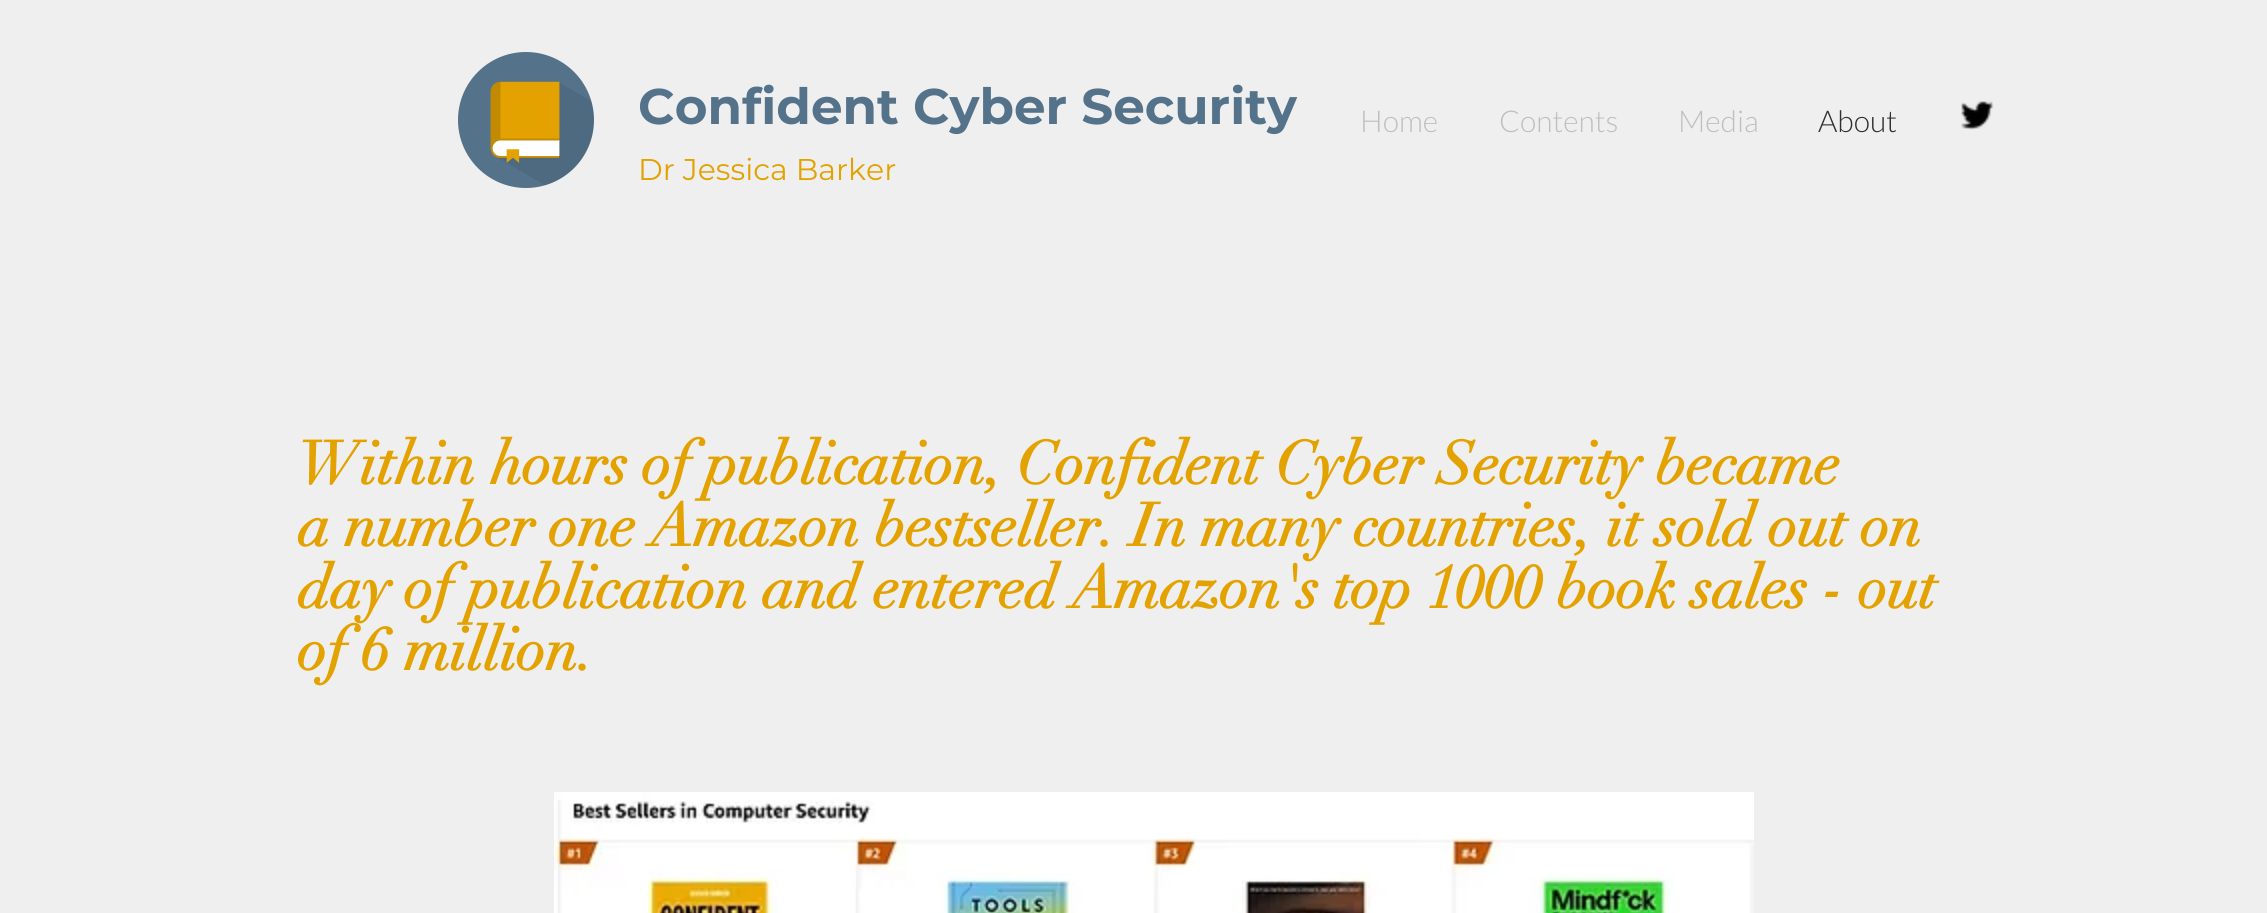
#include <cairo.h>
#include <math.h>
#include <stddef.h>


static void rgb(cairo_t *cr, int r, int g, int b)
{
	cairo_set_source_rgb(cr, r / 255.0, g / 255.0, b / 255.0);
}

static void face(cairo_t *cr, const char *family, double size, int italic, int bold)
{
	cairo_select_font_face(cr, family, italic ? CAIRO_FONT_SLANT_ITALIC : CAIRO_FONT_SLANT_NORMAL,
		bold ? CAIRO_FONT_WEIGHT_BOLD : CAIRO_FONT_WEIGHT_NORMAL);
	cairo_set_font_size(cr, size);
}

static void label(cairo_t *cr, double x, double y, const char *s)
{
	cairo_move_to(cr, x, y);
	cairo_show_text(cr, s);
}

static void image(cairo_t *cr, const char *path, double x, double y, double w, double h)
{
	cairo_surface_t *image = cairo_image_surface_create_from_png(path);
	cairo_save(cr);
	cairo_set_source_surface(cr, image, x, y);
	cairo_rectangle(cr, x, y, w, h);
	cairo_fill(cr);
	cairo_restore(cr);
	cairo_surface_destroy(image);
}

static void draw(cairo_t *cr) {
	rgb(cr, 239, 239, 239);
	cairo_paint(cr);
	image(cr, "image0.png", 458, 52, 136, 136);
	face(cr, "Montserrat", 50, 0, 1);
	rgb(cr, 84, 114, 138);
	label(cr, 638, 124, "Confident Cyber Security");
	face(cr, "Montserrat", 30, 0, 0);
	rgb(cr, 228, 162, 1);
	label(cr, 638, 180, "Dr Jessica Barker");
	face(cr, "Lato Light", 30, 0, 0);
	rgb(cr, 191, 191, 191);
	label(cr, 1360, 132, "Home");
	label(cr, 1499, 132, "Contents");
	label(cr, 1678, 132, "Media");
	rgb(cr, 48, 48, 48);
	label(cr, 1818, 132, "About");
	image(cr, "image1.png", 1961, 101, 33, 29);
	face(cr, "didot", 60, 0, 1);
	rgb(cr, 228, 162, 1);
	label(cr, 298, 484, "Within hours of publication, Confident Cyber Security became");
	label(cr, 298, 546, "a number one Amazon bestseller. In many countries, it sold out on");
	label(cr, 298, 608, "day of publication and entered Amazon's top 1000 book sales - out");
	label(cr, 298, 670, "of 6 million.");
	image(cr, "image2.png", 554, 792, 1200, 121);
}

int main(void) {
	cairo_surface_t *surface = cairo_image_surface_create(CAIRO_FORMAT_RGB24, 2267, 913);
	cairo_t *cr = cairo_create(surface);
	cairo_font_options_t *options = cairo_font_options_create();
	cairo_font_options_set_hint_metrics(options, CAIRO_HINT_METRICS_OFF);
	cairo_font_options_set_hint_style(options, CAIRO_HINT_STYLE_NONE);
	cairo_set_font_options(cr, options);
	cairo_set_miter_limit(cr, 4);
	draw(cr);
	cairo_surface_write_to_png(surface, "render.png");
	cairo_font_options_destroy(options);
	cairo_destroy(cr);
	cairo_surface_destroy(surface);
	return 0;
}
